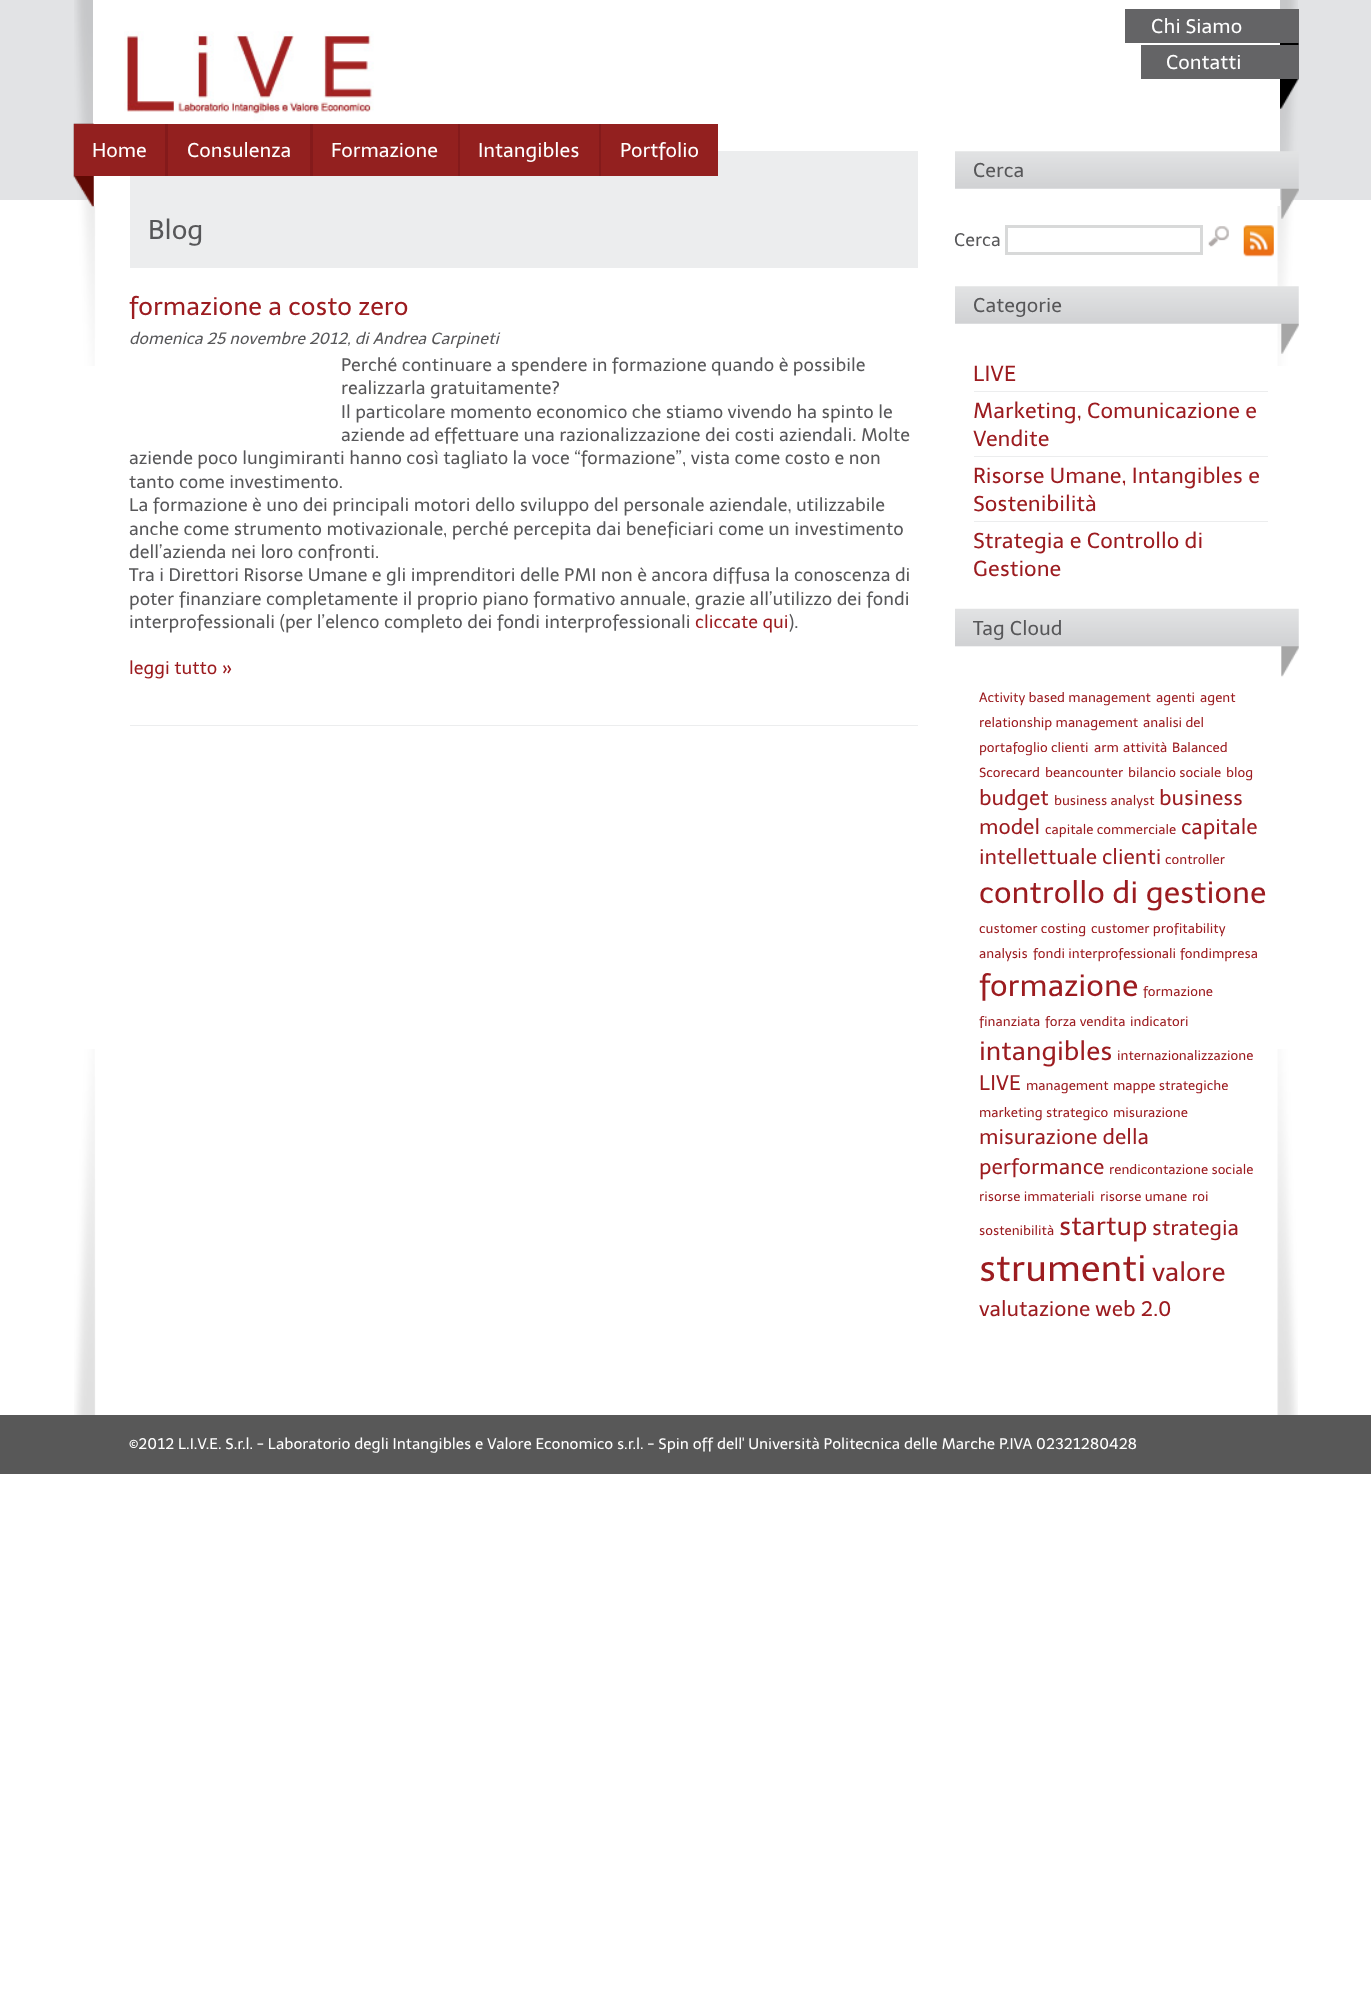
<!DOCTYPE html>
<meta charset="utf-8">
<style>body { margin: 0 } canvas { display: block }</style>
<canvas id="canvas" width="1371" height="1999"></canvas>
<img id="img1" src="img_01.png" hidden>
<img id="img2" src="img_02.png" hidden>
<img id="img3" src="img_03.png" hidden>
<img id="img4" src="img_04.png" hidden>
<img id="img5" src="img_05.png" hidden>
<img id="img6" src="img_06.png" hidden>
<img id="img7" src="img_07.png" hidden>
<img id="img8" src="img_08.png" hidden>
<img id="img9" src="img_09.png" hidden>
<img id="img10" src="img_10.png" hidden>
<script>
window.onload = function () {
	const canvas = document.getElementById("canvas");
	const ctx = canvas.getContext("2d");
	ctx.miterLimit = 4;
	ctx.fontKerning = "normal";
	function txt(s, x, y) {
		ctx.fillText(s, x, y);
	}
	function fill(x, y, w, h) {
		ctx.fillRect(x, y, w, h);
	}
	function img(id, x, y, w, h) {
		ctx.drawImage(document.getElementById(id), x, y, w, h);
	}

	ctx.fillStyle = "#FFFFFF";
	fill(0, 0, 1371, 1999);
	ctx.fillStyle = "#E2E3E5";
	fill(0, 0, 1371, 200);
	img("img1", 74, 0, 1224, 366);
	img("img2", 74, 1049, 1224, 366);
	ctx.fillStyle = "#FFFFFF";
	fill(93, 0, 1187, 206);
	img("img3", 124, 31, 250, 90);
	img("img4", 1280, 43, 19, 66);
	ctx.fillStyle = "#646466";
	fill(1125, 9, 174, 34);
	fill(1141, 45, 158, 34);
	img("img5", 73, 123, 21, 84);
	ctx.fillStyle = "#ECEDEE";
	fill(130, 151, 788, 117);
	ctx.fillStyle = "#93201F";
	fill(74, 124, 91, 52);
	ctx.fillStyle = "#841A1B";
	fill(165, 124, 3, 52);
	ctx.fillStyle = "#93201F";
	fill(168, 124, 142, 52);
	ctx.fillStyle = "#841A1B";
	fill(310, 124, 3, 52);
	ctx.fillStyle = "#93201F";
	fill(313, 124, 145, 52);
	ctx.fillStyle = "#841A1B";
	fill(458, 124, 2, 52);
	ctx.fillStyle = "#93201F";
	fill(460, 124, 139, 52);
	ctx.fillStyle = "#841A1B";
	fill(599, 124, 2, 52);
	ctx.fillStyle = "#93201F";
	fill(601, 124, 117, 52);
	ctx.fillStyle = "#ECEDEE";
	fill(130, 725, 788, 1);
	img("img6", 955, 151, 344, 68);
	ctx.strokeStyle = "#D8D9D9";
	ctx.lineWidth = 3;
	ctx.strokeRect(1006.5, 226.5, 195, 27);
	img("img7", 1208, 226, 21, 21);
	img("img8", 1243, 225, 31, 32);
	img("img9", 955, 286, 344, 68);
	fill(974, 391, 294, 1);
	fill(974, 456, 294, 1);
	fill(974, 521, 294, 1);
	img("img10", 955, 608, 344, 69);
	ctx.fillStyle = "#585858";
	fill(0, 1415, 1371, 59);
	ctx.font = "19.75px Telex";
	ctx.fillStyle = "#FFFFFF";
	txt("Chi Siamo", 1151, 33);
	txt("Contatti", 1166, 69);
	txt("Home", 92, 157);
	txt("Consulenza", 187, 157);
	txt("Formazione", 331, 157);
	txt("Intangibles", 478, 157);
	txt("Portfolio", 620, 157);
	ctx.font = "27px Telex";
	ctx.fillStyle = "#575759";
	txt("Blog", 148, 239);
	ctx.font = "25.25px Telex";
	ctx.fillStyle = "#9C1C20";
	txt("formazione a costo zero", 129, 315);
	ctx.font = "italic 16.2px Telex";
	ctx.fillStyle = "#575759";
	txt("domenica 25 novembre 2012, di Andrea Carpineti", 129, 344);
	ctx.font = "18px Telex";
	txt("Perché continuare a spendere in formazione quando è possibile", 341, 371);
	txt("realizzarla gratuitamente?", 341, 394);
	txt("Il particolare momento economico che stiamo vivendo ha spinto le", 341, 418);
	txt("aziende ad effettuare una razionalizzazione dei costi aziendali. Molte", 341, 441);
	txt("aziende poco lungimiranti hanno così tagliato la voce “formazione”, vista come costo e non", 129, 464);
	txt("tanto come investimento.", 129, 488);
	txt("La formazione è uno dei principali motori dello sviluppo del personale aziendale, utilizzabile", 129, 511);
	txt("anche come strumento motivazionale, perché percepita dai beneficiari come un investimento", 129, 535);
	txt("dell’azienda nei loro confronti.", 129, 558);
	txt("Tra i Direttori Risorse Umane e gli imprenditori delle PMI non è ancora diffusa la conoscenza di", 129, 581);
	txt("poter finanziare completamente il proprio piano formativo annuale, grazie all’utilizzo dei fondi", 129, 605);
	txt("interprofessionali (per l’elenco completo dei fondi interprofessionali", 129, 628);
	ctx.fillStyle = "#9C1C20";
	txt("cliccate qui", 695, 628);
	ctx.fillStyle = "#575759";
	txt(").", 789, 628);
	ctx.fillStyle = "#9C1C20";
	txt("leggi tutto »", 129, 674);
	ctx.font = "19.75px Telex";
	ctx.fillStyle = "#575759";
	txt("Cerca", 973, 177);
	ctx.font = "18px Telex";
	txt("Cerca", 954, 246);
	ctx.font = "19.75px Telex";
	txt("Categorie", 973, 312);
	ctx.font = "21.6px Telex";
	ctx.fillStyle = "#9C1C20";
	txt("LIVE", 973, 381);
	txt("Marketing, Comunicazione e", 973, 418);
	txt("Vendite", 973, 446);
	txt("Risorse Umane, Intangibles e", 973, 483);
	txt("Sostenibilità", 973, 511);
	txt("Strategia e Controllo di", 973, 548);
	txt("Gestione", 973, 576);
	ctx.font = "19.75px Telex";
	ctx.fillStyle = "#575759";
	txt("Tag Cloud", 973, 635);
	ctx.font = "13.3px Telex";
	ctx.fillStyle = "#9C1C20";
	txt("Activity based management", 979, 702);
	txt("agenti", 1156, 702);
	txt("agent", 1200, 702);
	txt("relationship management", 979, 727);
	txt("analisi del", 1143, 727);
	txt("portafoglio clienti", 979, 752);
	txt("arm", 1094, 752);
	txt("attività", 1123, 752);
	txt("Balanced", 1172, 752);
	txt("Scorecard", 979, 777);
	txt("beancounter", 1045, 777);
	txt("bilancio sociale", 1128, 777);
	txt("blog", 1226, 777);
	ctx.font = "21px Telex";
	txt("budget", 979, 805);
	ctx.font = "13.3px Telex";
	txt("business analyst", 1054, 805);
	ctx.font = "21px Telex";
	txt("business", 1159, 805);
	txt("model", 979, 834);
	ctx.font = "13.3px Telex";
	txt("capitale commerciale", 1045, 834);
	ctx.font = "21px Telex";
	txt("capitale", 1181, 834);
	txt("intellettuale", 979, 864);
	txt("clienti", 1102, 864);
	ctx.font = "13.3px Telex";
	txt("controller", 1165, 864);
	ctx.font = "30.25px Telex";
	txt("controllo di gestione", 979, 903);
	ctx.font = "13.3px Telex";
	txt("customer costing", 979, 933);
	txt("customer profitability", 1091, 933);
	txt("analysis", 979, 958);
	txt("fondi interprofessionali", 1033, 958);
	txt("fondimpresa", 1180, 958);
	ctx.font = "30.25px Telex";
	txt("formazione", 979, 996);
	ctx.font = "13.3px Telex";
	txt("formazione", 1143, 996);
	txt("finanziata", 979, 1026);
	txt("forza vendita", 1045, 1026);
	txt("indicatori", 1130, 1026);
	ctx.font = "26px Telex";
	txt("intangibles", 979, 1060);
	ctx.font = "13.3px Telex";
	txt("internazionalizzazione", 1117, 1060);
	ctx.font = "21px Telex";
	txt("LIVE", 979, 1090);
	ctx.font = "13.3px Telex";
	txt("management", 1026, 1090);
	txt("mappe strategiche", 1113, 1090);
	txt("marketing strategico", 979, 1117);
	txt("misurazione", 1113, 1117);
	ctx.font = "21px Telex";
	txt("misurazione della", 979, 1144);
	txt("performance", 979, 1174);
	ctx.font = "13.3px Telex";
	txt("rendicontazione sociale", 1109, 1174);
	txt("risorse immateriali", 979, 1201);
	txt("risorse umane", 1100, 1201);
	txt("roi", 1192, 1201);
	txt("sostenibilità", 979, 1235);
	ctx.font = "26px Telex";
	txt("startup", 1059, 1235);
	ctx.font = "21px Telex";
	txt("strategia", 1152, 1235);
	ctx.font = "36.5px Telex";
	txt("strumenti", 979, 1281);
	ctx.font = "26px Telex";
	txt("valore", 1152, 1281);
	ctx.font = "21px Telex";
	txt("valutazione", 979, 1316);
	txt("web 2.0", 1095, 1316);
	ctx.font = "15.3px Telex";
	ctx.fillStyle = "#FFFFFF";
	txt("©2012 L.I.V.E. S.r.l. - Laboratorio degli Intangibles e Valore Economico s.r.l. - Spin off dell' Università Politecnica delle Marche P.IVA 02321280428", 129, 1449);
};
</script>
